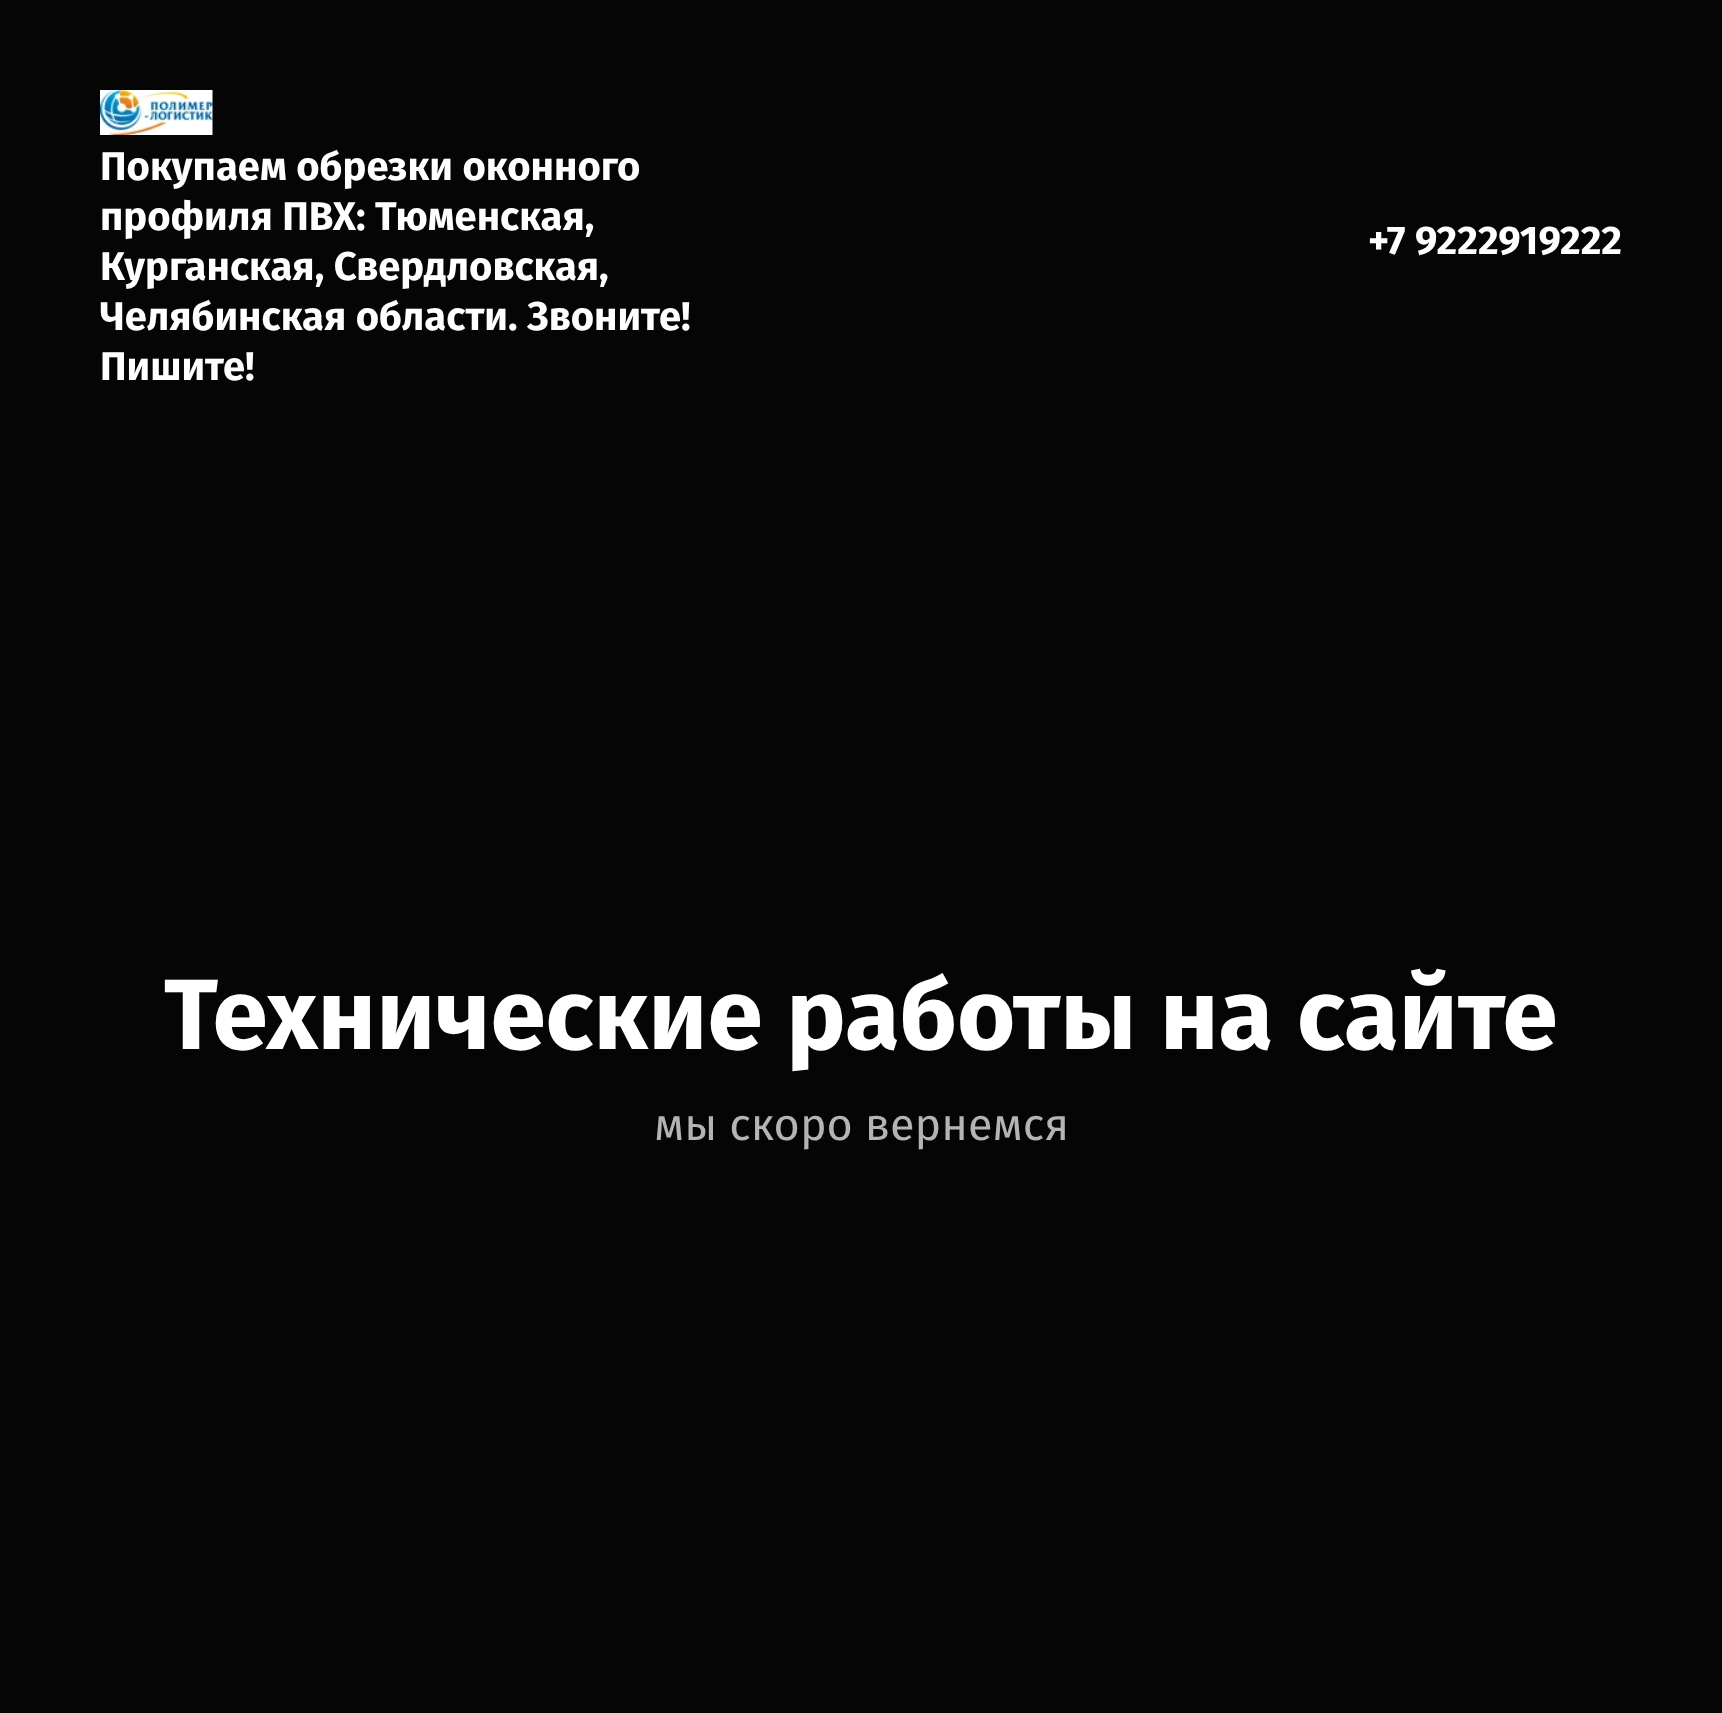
<!DOCTYPE html>
<meta charset="utf-8">
<style>body { margin: 0 } canvas { display: block }</style>
<canvas id="canvas" width="1722" height="1713"></canvas>
<img id="img1" src="img_01.png" hidden>
<script>
window.onload = function () {
	const canvas = document.getElementById("canvas");
	const ctx = canvas.getContext("2d");
	ctx.miterLimit = 4;
	ctx.fontKerning = "normal";
	function txt(s, x, y) {
		ctx.fillText(s, x, y);
	}
	function fill(x, y, w, h) {
		ctx.fillRect(x, y, w, h);
	}
	function img(id, x, y, w, h) {
		ctx.drawImage(document.getElementById(id), x, y, w, h);
	}

	ctx.fillStyle = "#050505";
	fill(0, 0, 1722, 1713);
	img("img1", 100, 90, 113, 45);
	ctx.font = "bold 40px Fira Sans";
	ctx.fillStyle = "#FFFFFF";
	txt("Покупаем обрезки оконного", 100, 180);
	txt("профиля ПВХ: Тюменская,", 100, 230);
	txt("Курганская, Свердловская,", 100, 280);
	txt("Челябинская области. Звоните!", 100, 330);
	txt("Пишите!", 100, 380);
	txt("+7 9222919222", 1368, 254);
	ctx.font = "bold 100px Fira Sans";
	txt("Технические работы на сайте", 164, 1049);
	ctx.font = "45px Fira Sans";
	ctx.fillStyle = "#B4B4B4";
	txt("мы скоро вернемся", 654, 1140);
};
</script>
